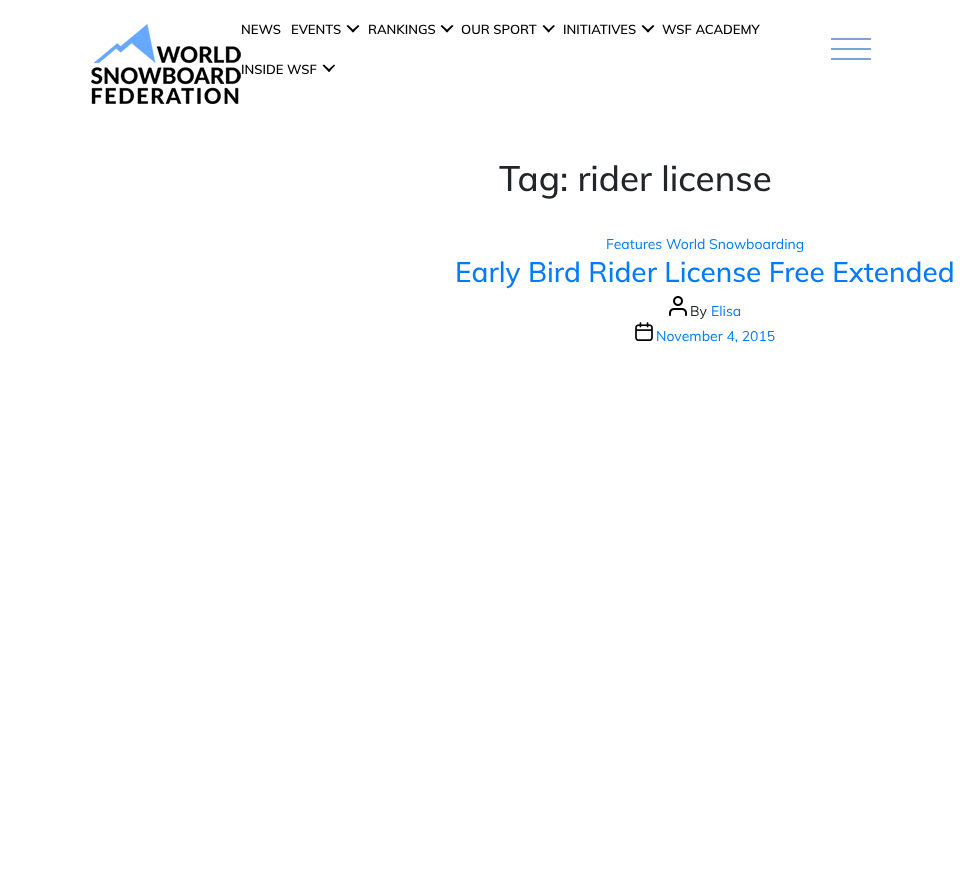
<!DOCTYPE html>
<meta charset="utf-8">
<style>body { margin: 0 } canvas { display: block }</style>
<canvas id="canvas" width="963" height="885"></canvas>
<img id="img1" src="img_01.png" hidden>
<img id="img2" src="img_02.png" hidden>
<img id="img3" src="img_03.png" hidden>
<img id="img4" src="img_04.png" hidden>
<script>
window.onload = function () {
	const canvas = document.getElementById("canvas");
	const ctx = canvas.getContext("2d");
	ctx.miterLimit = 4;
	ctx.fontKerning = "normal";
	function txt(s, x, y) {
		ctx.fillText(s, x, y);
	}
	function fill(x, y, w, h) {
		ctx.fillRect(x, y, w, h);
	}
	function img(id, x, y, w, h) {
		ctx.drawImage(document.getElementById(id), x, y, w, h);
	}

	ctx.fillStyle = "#FFFFFF";
	fill(0, 0, 963, 885);
	img("img1", 91, 24, 150, 80);
	ctx.fillStyle = "#000000";
	ctx.beginPath();
	ctx.moveTo(358, 25);
	ctx.lineTo(359.5, 26);
	ctx.lineTo(353, 32.5);
	ctx.lineTo(351.5, 31);
	ctx.closePath();
	ctx.fill();
	ctx.beginPath();
	ctx.moveTo(348, 25);
	ctx.lineTo(354.5, 31);
	ctx.lineTo(353, 32.5);
	ctx.lineTo(346.5, 26);
	ctx.closePath();
	ctx.fill();
	ctx.beginPath();
	ctx.moveTo(452, 25);
	ctx.lineTo(453.5, 26);
	ctx.lineTo(447, 32.5);
	ctx.lineTo(445.5, 31);
	ctx.closePath();
	ctx.fill();
	ctx.beginPath();
	ctx.moveTo(442, 25);
	ctx.lineTo(448.5, 31);
	ctx.lineTo(447, 32.5);
	ctx.lineTo(440.5, 26);
	ctx.closePath();
	ctx.fill();
	ctx.beginPath();
	ctx.moveTo(553.5, 25);
	ctx.lineTo(555, 26);
	ctx.lineTo(548.5, 32.5);
	ctx.lineTo(547.5, 31);
	ctx.closePath();
	ctx.fill();
	ctx.beginPath();
	ctx.moveTo(544, 25);
	ctx.lineTo(550, 31);
	ctx.lineTo(548.5, 32.5);
	ctx.lineTo(542.5, 26);
	ctx.closePath();
	ctx.fill();
	ctx.beginPath();
	ctx.moveTo(653, 25);
	ctx.lineTo(654.5, 26);
	ctx.lineTo(648, 32.5);
	ctx.lineTo(646.5, 31);
	ctx.closePath();
	ctx.fill();
	ctx.beginPath();
	ctx.moveTo(643, 25);
	ctx.lineTo(649.5, 31);
	ctx.lineTo(648, 32.5);
	ctx.lineTo(641.5, 26);
	ctx.closePath();
	ctx.fill();
	ctx.beginPath();
	ctx.moveTo(334, 64.5);
	ctx.lineTo(335, 65.5);
	ctx.lineTo(329, 72);
	ctx.lineTo(327.5, 70.5);
	ctx.closePath();
	ctx.fill();
	ctx.beginPath();
	ctx.moveTo(324, 64.5);
	ctx.lineTo(330.5, 70.5);
	ctx.lineTo(329, 72);
	ctx.lineTo(322.5, 65.5);
	ctx.closePath();
	ctx.fill();
	img("img2", 831, 38, 40, 22);
	img("img3", 669, 296, 18, 20);
	img("img4", 635, 322, 18, 19);
	ctx.font = "600 13px Muli";
	txt("NEWS", 241, 34);
	txt("EVENTS", 291, 34);
	txt("RANKINGS", 368, 34);
	txt("OUR SPORT", 461, 34);
	txt("INITIATIVES", 563, 34);
	txt("WSF ACADEMY", 662, 34);
	txt("INSIDE WSF", 241, 74);
	ctx.font = "500 35px Muli";
	ctx.fillStyle = "#212529";
	txt("Tag: rider license", 499, 191);
	ctx.font = "14px Muli";
	ctx.fillStyle = "#007BFF";
	txt("Features World Snowboarding", 606, 249);
	ctx.font = "500 28px Muli";
	txt("Early Bird Rider License Free Extended", 455, 282);
	ctx.font = "14px Muli";
	ctx.fillStyle = "#212529";
	txt("By", 690, 316);
	ctx.fillStyle = "#007BFF";
	txt("Elisa", 711, 316);
	txt("November 4, 2015", 656, 341);
};
</script>
